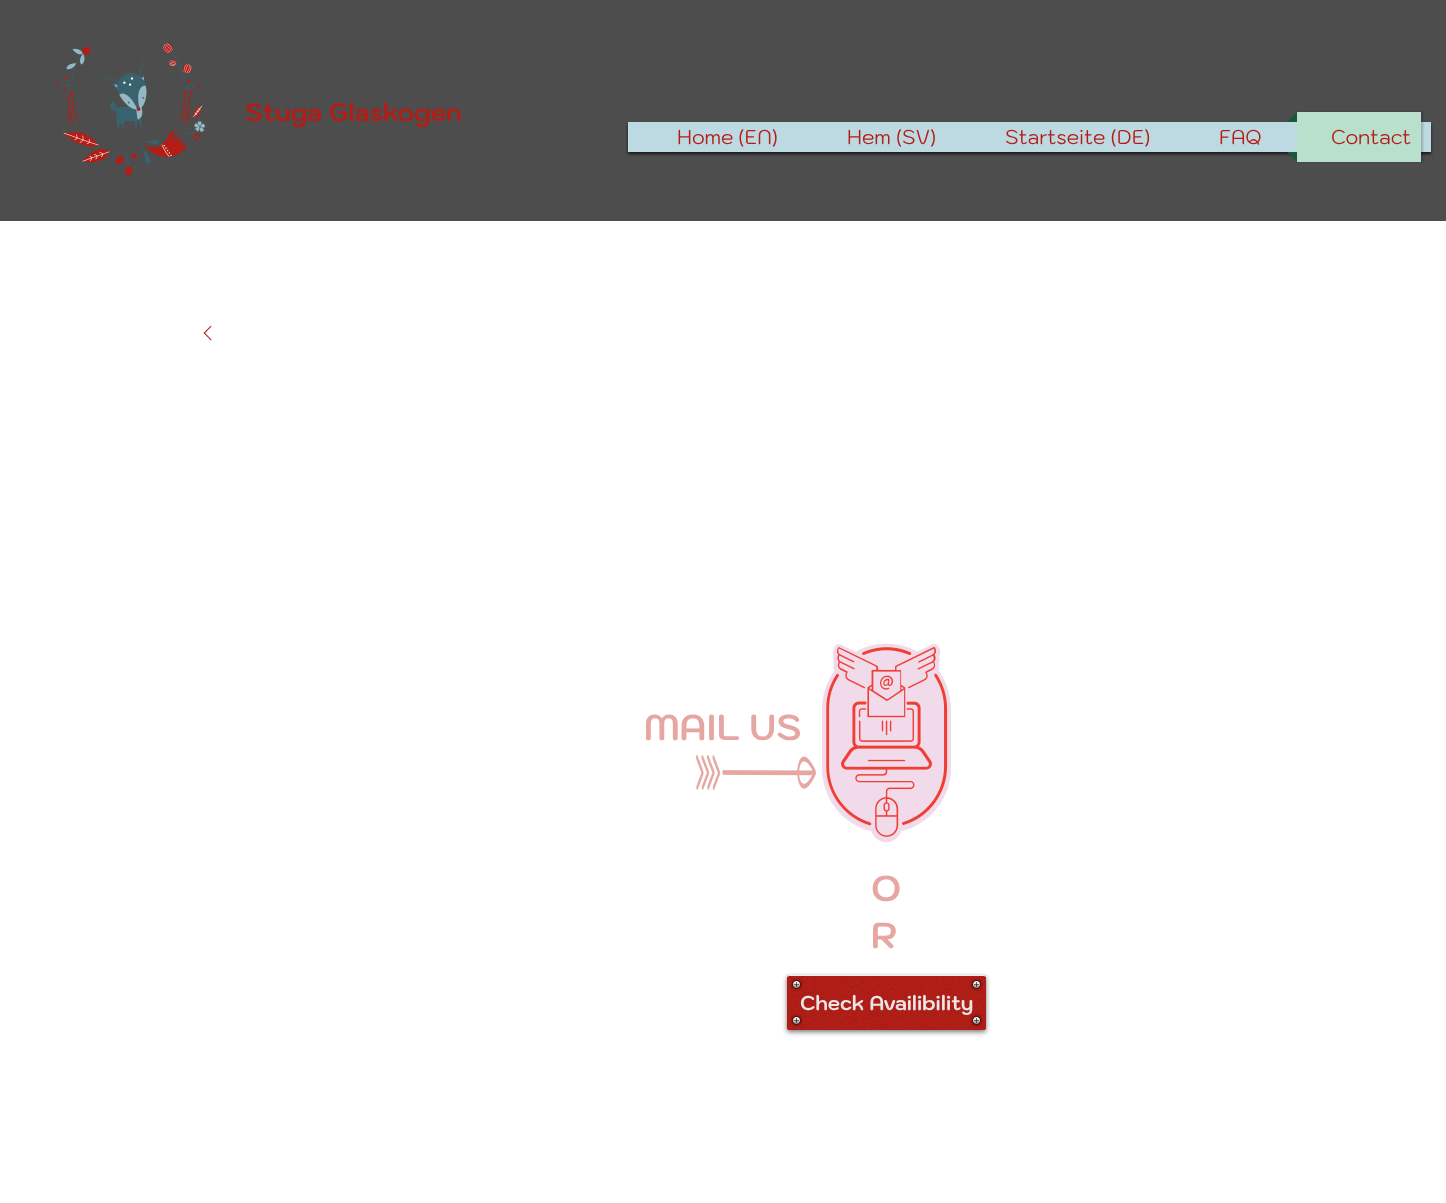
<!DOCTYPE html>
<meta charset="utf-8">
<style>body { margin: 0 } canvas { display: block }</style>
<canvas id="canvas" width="1446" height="1203"></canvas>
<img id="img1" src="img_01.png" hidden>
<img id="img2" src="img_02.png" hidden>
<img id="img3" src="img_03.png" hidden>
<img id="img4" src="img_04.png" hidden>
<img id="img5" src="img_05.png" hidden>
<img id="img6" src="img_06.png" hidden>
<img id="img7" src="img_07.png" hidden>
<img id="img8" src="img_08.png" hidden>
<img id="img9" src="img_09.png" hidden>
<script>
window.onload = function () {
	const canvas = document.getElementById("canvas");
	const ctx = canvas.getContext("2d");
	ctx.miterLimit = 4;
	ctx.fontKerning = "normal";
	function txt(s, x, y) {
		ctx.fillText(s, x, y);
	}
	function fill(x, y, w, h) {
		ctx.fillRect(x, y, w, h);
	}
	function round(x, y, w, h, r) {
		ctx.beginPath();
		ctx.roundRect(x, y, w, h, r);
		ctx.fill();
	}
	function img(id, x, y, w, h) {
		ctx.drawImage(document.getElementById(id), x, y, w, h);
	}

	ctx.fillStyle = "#FFFFFF";
	fill(0, 0, 1446, 1203);
	ctx.fillStyle = "#4D4D4D";
	fill(0, 0, 1446, 221);
	img("img1", 56, 41, 149, 137);
	ctx.fillStyle = "rgba(0, 0, 0, 0.7)";
	ctx.filter = "blur(1.5px)";
	ctx.beginPath();
	ctx.rect(628, 124, 803, 30);
	ctx.fill();
	ctx.filter = "none";
	ctx.fillStyle = "#BDD9E1";
	fill(628, 122, 803, 30);
	ctx.fillStyle = "rgba(0, 0, 0, 0.2)";
	ctx.filter = "blur(1px)";
	ctx.beginPath();
	ctx.rect(1299, 112, 124, 50);
	ctx.fill();
	ctx.filter = "none";
	ctx.fillStyle = "#1B5739";
	ctx.beginPath();
	ctx.moveTo(1297, 122);
	ctx.lineTo(1287, 122);
	ctx.lineTo(1297, 112);
	ctx.closePath();
	ctx.moveTo(1287, 152);
	ctx.lineTo(1297, 152);
	ctx.lineTo(1297, 162);
	ctx.closePath();
	ctx.fill();
	ctx.fillStyle = "#B9E0CD";
	fill(1297, 112, 124, 50);
	img("img2", 203, 325, 9, 16);
	img("img3", 822, 643, 129, 200);
	img("img4", 696, 755, 120, 35);
	ctx.fillStyle = "rgba(0, 0, 0, 0.53)";
	ctx.filter = "blur(2.5px)";
	ctx.beginPath();
	ctx.roundRect(787, 977, 199, 55, 2);
	ctx.fill();
	ctx.filter = "none";
	ctx.fillStyle = "#B31D15";
	round(787, 975, 199, 55, 2);
	img("img5", 787, 975, 199, 55);
	ctx.fillStyle = "rgba(255, 255, 255, 0.92)";
	ctx.beginPath();
	ctx.moveTo(789, 976);
	ctx.lineTo(984, 976);
	ctx.lineTo(986, 977);
	ctx.lineTo(986, 978);
	ctx.bezierCurveTo(986, 977, 986, 975, 984, 975);
	ctx.lineTo(789, 975);
	ctx.bezierCurveTo(787, 975, 787, 977, 787, 978);
	ctx.bezierCurveTo(787, 977, 788, 976, 789, 976);
	ctx.closePath();
	ctx.fill();
	img("img6", 790, 978, 13, 13);
	img("img7", 970, 978, 13, 13);
	img("img8", 790, 1014, 13, 13);
	img("img9", 970, 1014, 13, 13);
	ctx.font = "bold 25px Kodchasan";
	ctx.fillStyle = "#B31D15";
	txt("Stuga Glaskogen", 245, 121);
	ctx.font = "20px Kodchasan";
	txt("Home (EN)", 677, 144);
	txt("Hem (SV)", 847, 144);
	txt("Startseite (DE)", 1005, 144);
	txt("FAQ", 1219, 144);
	txt("Contact", 1331, 144);
	ctx.font = "bold 36px Kodchasan";
	ctx.fillStyle = "#E6A6A2";
	txt("MAIL US", 644, 740);
	txt("O", 871, 901);
	txt("R", 871, 948);
	ctx.font = "bold 20px Kodchasan";
	ctx.fillStyle = "#E8E6E6";
	txt("Check Availibility", 800, 1010);
};
</script>
